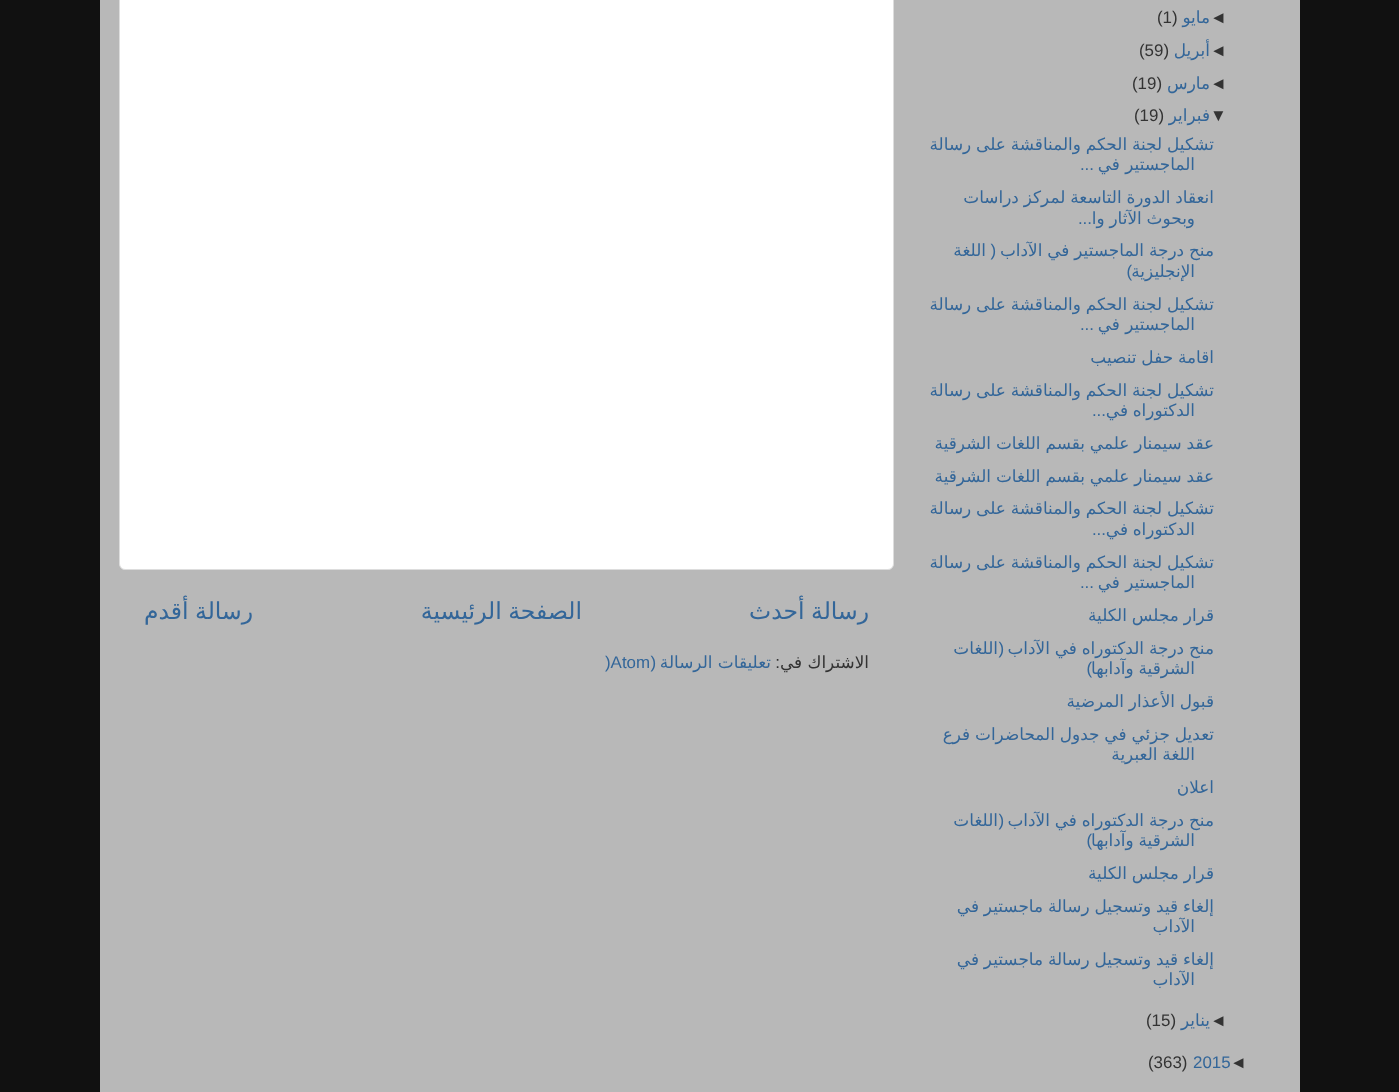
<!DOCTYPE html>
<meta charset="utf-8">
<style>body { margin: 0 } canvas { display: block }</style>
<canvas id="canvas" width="1399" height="1092"></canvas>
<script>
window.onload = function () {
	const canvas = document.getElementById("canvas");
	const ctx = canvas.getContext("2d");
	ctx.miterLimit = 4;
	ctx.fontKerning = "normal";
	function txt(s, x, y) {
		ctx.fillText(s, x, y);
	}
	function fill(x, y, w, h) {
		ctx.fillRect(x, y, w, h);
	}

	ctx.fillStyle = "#111111";
	fill(0, 0, 1399, 1092);
	ctx.fillStyle = "#B8B8B8";
	fill(100, 0, 1200, 1092);
	ctx.fillStyle = "#FFFFFF";
	ctx.beginPath();
	ctx.roundRect(119.5, -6.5, 774, 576, 5.5);
	ctx.fill();
	ctx.strokeStyle = "#DDDDDD";
	ctx.stroke();
	ctx.font = "16.9px Liberation Sans";
	ctx.fillStyle = "#333333";
	txt("◄", 1210, 23);
	ctx.direction = "rtl";
	ctx.font = "16.9px DejaVu Sans";
	ctx.fillStyle = "#336699";
	txt("مايو", 1210, 23);
	ctx.direction = "ltr";
	ctx.font = "16.9px Liberation Sans";
	ctx.fillStyle = "#333333";
	txt("(1)", 1157, 23);
	txt("◄", 1210, 56);
	ctx.direction = "rtl";
	ctx.font = "16.9px DejaVu Sans";
	ctx.fillStyle = "#336699";
	txt("أبريل", 1210, 56);
	ctx.direction = "ltr";
	ctx.font = "16.9px Liberation Sans";
	ctx.fillStyle = "#333333";
	txt("(59)", 1139, 56);
	txt("◄", 1210, 89);
	ctx.direction = "rtl";
	ctx.font = "16.9px DejaVu Sans";
	ctx.fillStyle = "#336699";
	txt("مارس", 1210, 89);
	ctx.direction = "ltr";
	ctx.font = "16.9px Liberation Sans";
	ctx.fillStyle = "#333333";
	txt("(19)", 1132, 89);
	txt("▼", 1210, 121);
	ctx.direction = "rtl";
	ctx.font = "16.9px DejaVu Sans";
	ctx.fillStyle = "#336699";
	txt("فبراير", 1210, 121);
	ctx.direction = "ltr";
	ctx.font = "16.9px Liberation Sans";
	ctx.fillStyle = "#333333";
	txt("(19)", 1134, 121);
	ctx.wordSpacing = "-0.5px";
	ctx.direction = "rtl";
	ctx.font = "16.9px DejaVu Sans";
	ctx.fillStyle = "#336699";
	txt("تشكيل لجنة الحكم والمناقشة على رسالة", 1214, 150);
	ctx.wordSpacing = "0px";
	txt("الماجستير في", 1195, 170);
	ctx.font = "16.9px Liberation Sans";
	txt("...", 1094, 170);
	ctx.wordSpacing = "-0.5px";
	ctx.font = "16.9px DejaVu Sans";
	txt("انعقاد الدورة التاسعة لمركز دراسات", 1214, 203);
	txt("وبحوث الآثار وا", 1195, 224);
	ctx.wordSpacing = "0px";
	ctx.font = "16.9px Liberation Sans";
	txt("...", 1092, 224);
	ctx.wordSpacing = "-0.5px";
	ctx.font = "16.9px DejaVu Sans";
	txt("منح درجة الماجستير في الآداب", 1214, 256);
	ctx.wordSpacing = "0px";
	ctx.font = "16.9px Liberation Sans";
	txt("(", 996, 256);
	ctx.font = "16.9px DejaVu Sans";
	txt("اللغة", 986, 256);
	txt("الإنجليزية", 1195, 277);
	ctx.font = "16.9px Liberation Sans";
	txt(")", 1132, 277);
	ctx.wordSpacing = "-0.5px";
	ctx.font = "16.9px DejaVu Sans";
	txt("تشكيل لجنة الحكم والمناقشة على رسالة", 1214, 310);
	ctx.wordSpacing = "0px";
	txt("الماجستير في", 1195, 330);
	ctx.font = "16.9px Liberation Sans";
	txt("...", 1094, 330);
	ctx.wordSpacing = "-0.5px";
	ctx.font = "16.9px DejaVu Sans";
	txt("اقامة حفل تنصيب", 1214, 363);
	txt("تشكيل لجنة الحكم والمناقشة على رسالة", 1214, 396);
	ctx.wordSpacing = "0px";
	txt("الدكتوراه", 1195, 416);
	txt("في", 1128, 416);
	ctx.font = "16.9px Liberation Sans";
	txt("...", 1106, 416);
	ctx.wordSpacing = "-0.5px";
	ctx.font = "16.9px DejaVu Sans";
	txt("عقد سيمنار علمي بقسم اللغات الشرقية", 1214, 449);
	txt("عقد سيمنار علمي بقسم اللغات الشرقية", 1214, 482);
	txt("تشكيل لجنة الحكم والمناقشة على رسالة", 1214, 514);
	ctx.wordSpacing = "0px";
	txt("الدكتوراه", 1195, 535);
	txt("في", 1128, 535);
	ctx.font = "16.9px Liberation Sans";
	txt("...", 1106, 535);
	ctx.wordSpacing = "-0.5px";
	ctx.font = "16.9px DejaVu Sans";
	txt("تشكيل لجنة الحكم والمناقشة على رسالة", 1214, 568);
	ctx.wordSpacing = "0px";
	txt("الماجستير في", 1195, 588);
	ctx.font = "16.9px Liberation Sans";
	txt("...", 1094, 588);
	ctx.wordSpacing = "-0.5px";
	ctx.font = "16.9px DejaVu Sans";
	txt("قرار مجلس الكلية", 1214, 621);
	txt("منح درجة الدكتوراه في الآداب", 1214, 654);
	ctx.wordSpacing = "0px";
	ctx.font = "16.9px Liberation Sans";
	txt("(", 1004, 654);
	ctx.font = "16.9px DejaVu Sans";
	txt("اللغات", 998, 654);
	ctx.wordSpacing = "-0.5px";
	txt("الشرقية وآدابها", 1195, 674);
	ctx.wordSpacing = "0px";
	ctx.font = "16.9px Liberation Sans";
	txt(")", 1092, 674);
	ctx.wordSpacing = "-0.5px";
	ctx.font = "16.9px DejaVu Sans";
	txt("قبول الأعذار المرضية", 1214, 707);
	txt("تعديل جزئي في جدول المحاضرات فرع", 1214, 740);
	txt("اللغة العبرية", 1195, 760);
	ctx.wordSpacing = "0px";
	txt("اعلان", 1214, 793);
	ctx.wordSpacing = "-0.5px";
	txt("منح درجة الدكتوراه في الآداب", 1214, 826);
	ctx.wordSpacing = "0px";
	ctx.font = "16.9px Liberation Sans";
	txt("(", 1004, 826);
	ctx.font = "16.9px DejaVu Sans";
	txt("اللغات", 998, 826);
	ctx.wordSpacing = "-0.5px";
	txt("الشرقية وآدابها", 1195, 846);
	ctx.wordSpacing = "0px";
	ctx.font = "16.9px Liberation Sans";
	txt(")", 1092, 846);
	ctx.wordSpacing = "-0.5px";
	ctx.font = "16.9px DejaVu Sans";
	txt("قرار مجلس الكلية", 1214, 879);
	txt("إلغاء قيد وتسجيل رسالة ماجستير في", 1214, 912);
	ctx.wordSpacing = "0px";
	txt("الآداب", 1195, 932);
	ctx.wordSpacing = "-0.5px";
	txt("إلغاء قيد وتسجيل رسالة ماجستير في", 1214, 965);
	ctx.wordSpacing = "0px";
	txt("الآداب", 1195, 985);
	ctx.direction = "ltr";
	ctx.font = "16.9px Liberation Sans";
	ctx.fillStyle = "#333333";
	txt("◄", 1210, 1026);
	ctx.direction = "rtl";
	ctx.font = "16.9px DejaVu Sans";
	ctx.fillStyle = "#336699";
	txt("يناير", 1210, 1026);
	ctx.direction = "ltr";
	ctx.font = "16.9px Liberation Sans";
	ctx.fillStyle = "#333333";
	txt("(15)", 1146, 1026);
	txt("◄", 1230, 1068);
	ctx.fillStyle = "#336699";
	txt("2015", 1193, 1068);
	ctx.fillStyle = "#333333";
	txt("(363)", 1148, 1068);
	ctx.wordSpacing = "-1px";
	ctx.direction = "rtl";
	ctx.font = "23.5px DejaVu Sans";
	ctx.fillStyle = "#336699";
	txt("رسالة أحدث", 869, 619);
	txt("الصفحة الرئيسية", 582, 619);
	txt("رسالة أقدم", 253, 619);
	ctx.wordSpacing = "0px";
	ctx.font = "16.9px DejaVu Sans";
	ctx.fillStyle = "#333333";
	txt("الاشتراك في", 869, 668);
	ctx.font = "16.9px Liberation Sans";
	txt(":", 780, 668);
	ctx.font = "16.9px DejaVu Sans";
	ctx.fillStyle = "#336699";
	txt("تعليقات الرسالة", 771, 668);
	ctx.font = "16.9px Liberation Sans";
	txt("(", 656, 668);
	ctx.direction = "ltr";
	txt(")Atom", 605, 668);
};
</script>
